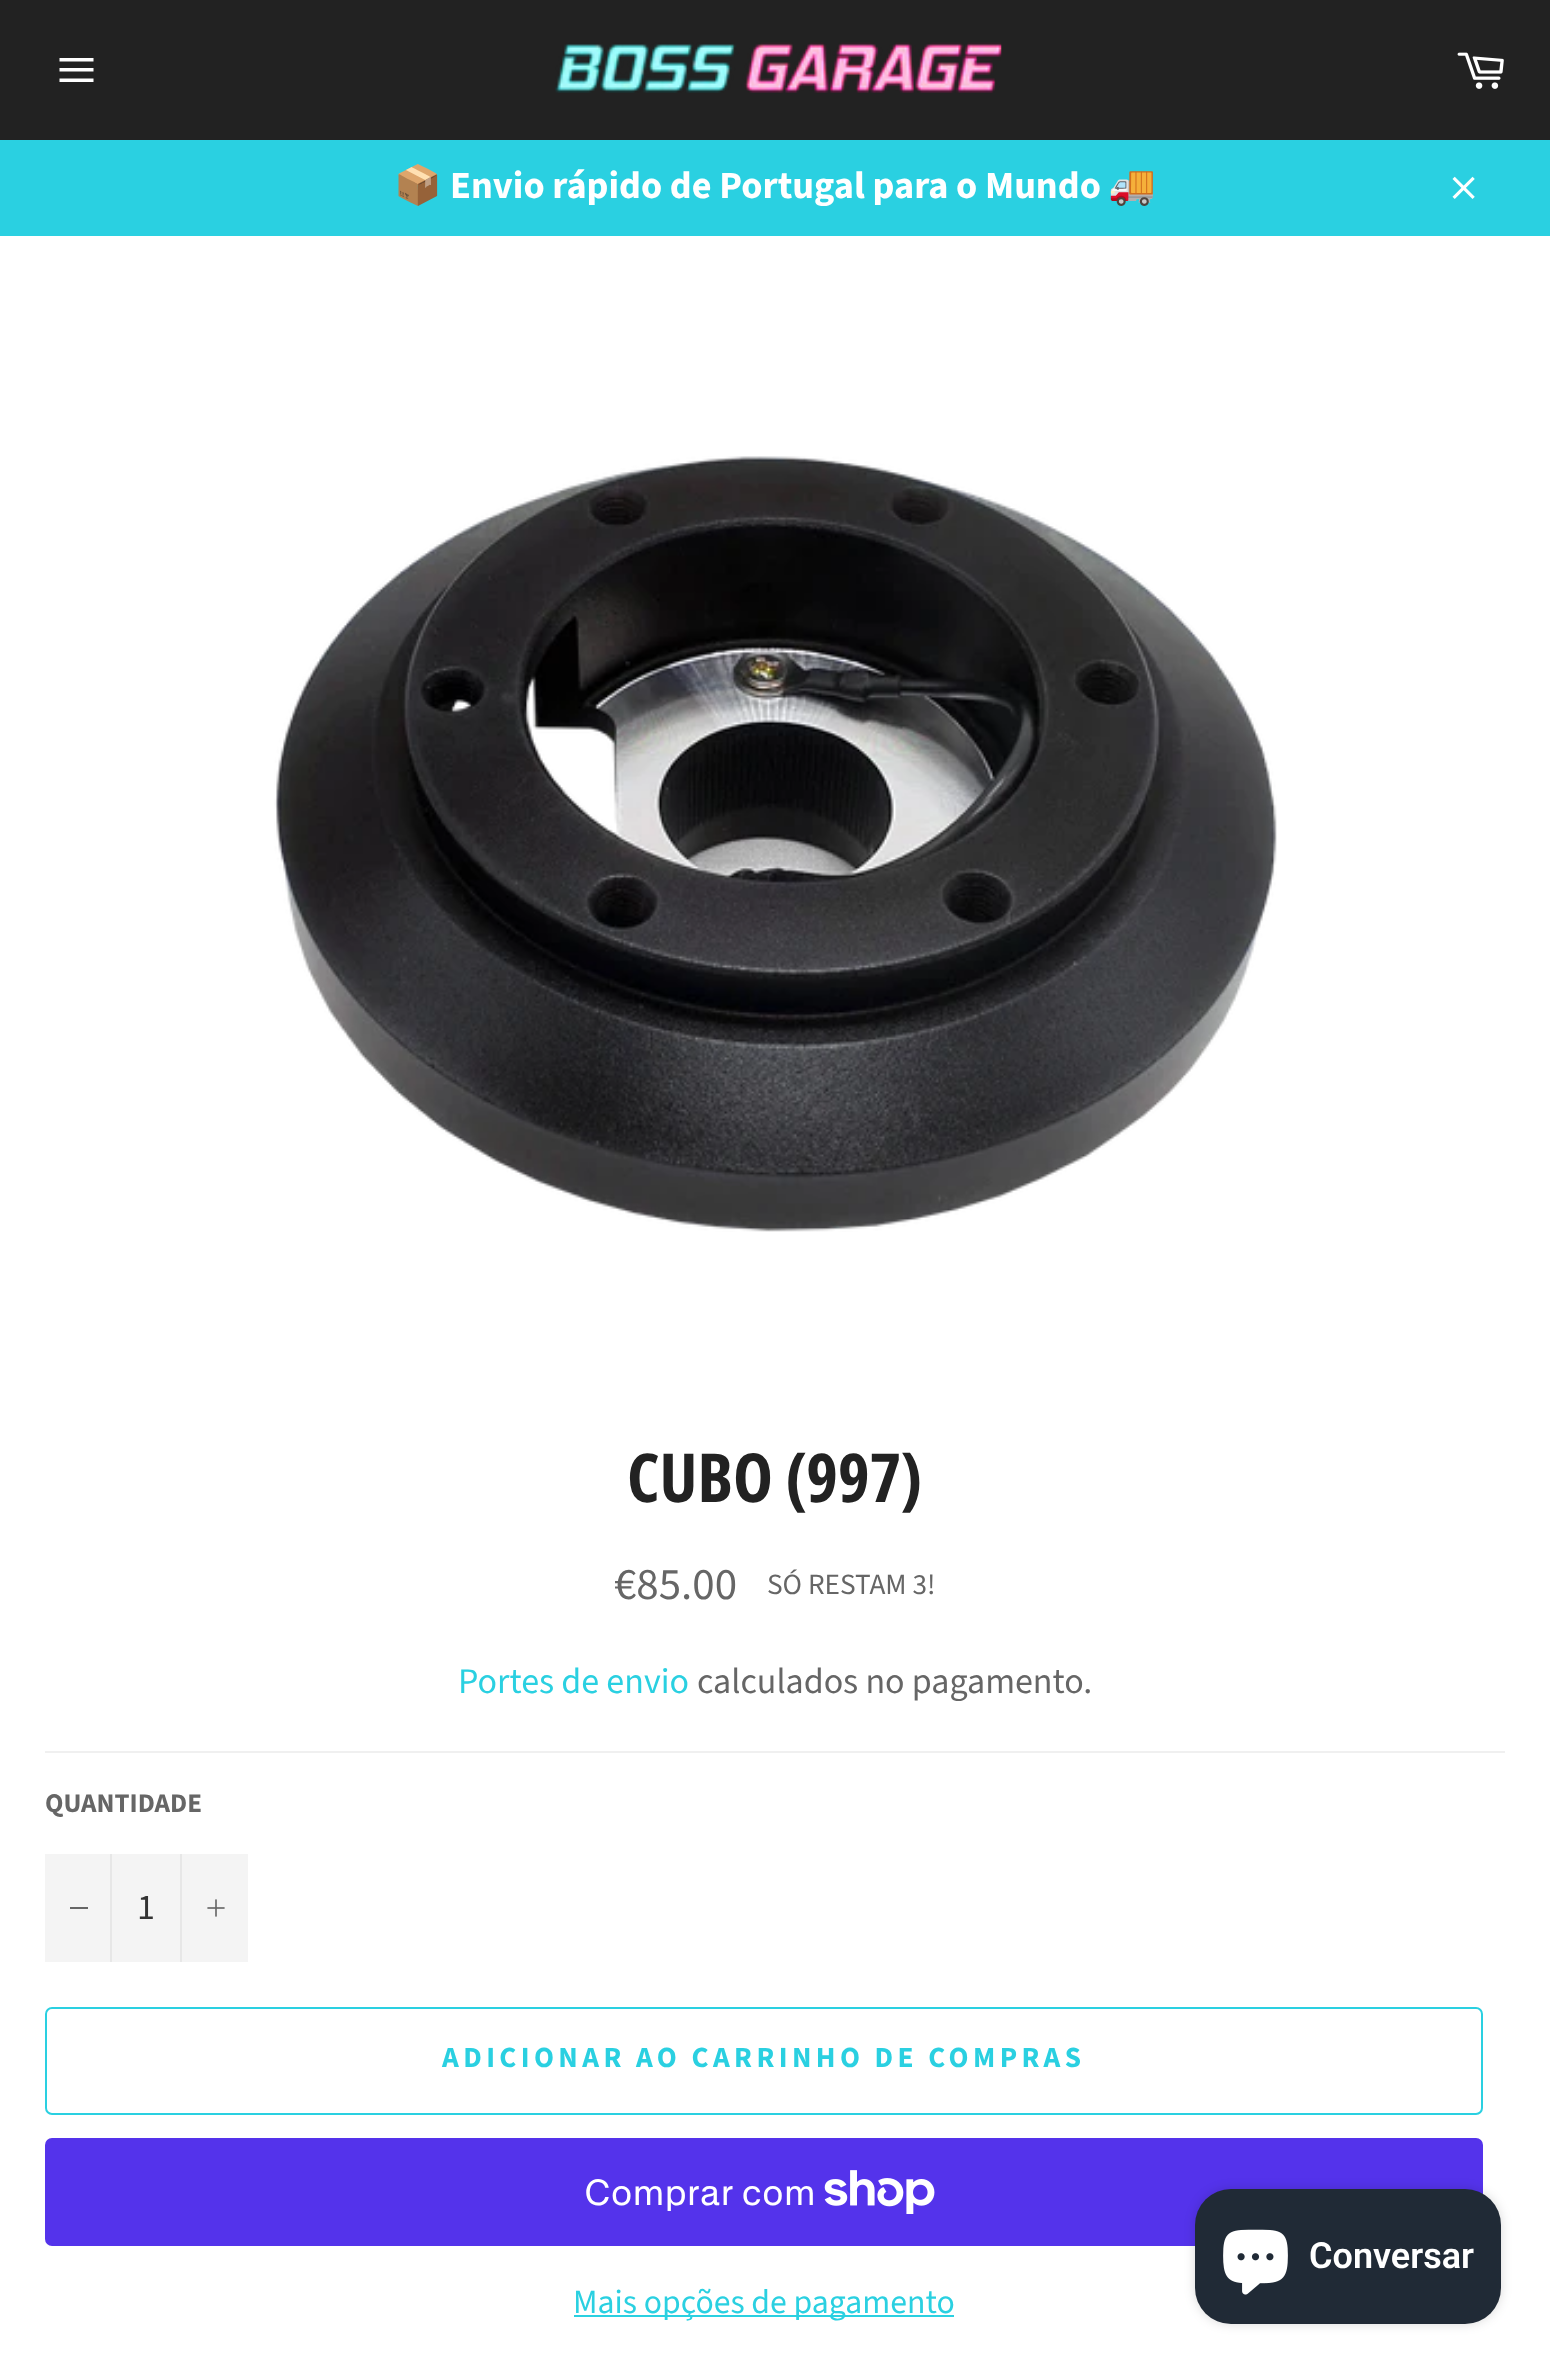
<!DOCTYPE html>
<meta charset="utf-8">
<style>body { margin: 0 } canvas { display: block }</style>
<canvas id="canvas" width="1550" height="2371"></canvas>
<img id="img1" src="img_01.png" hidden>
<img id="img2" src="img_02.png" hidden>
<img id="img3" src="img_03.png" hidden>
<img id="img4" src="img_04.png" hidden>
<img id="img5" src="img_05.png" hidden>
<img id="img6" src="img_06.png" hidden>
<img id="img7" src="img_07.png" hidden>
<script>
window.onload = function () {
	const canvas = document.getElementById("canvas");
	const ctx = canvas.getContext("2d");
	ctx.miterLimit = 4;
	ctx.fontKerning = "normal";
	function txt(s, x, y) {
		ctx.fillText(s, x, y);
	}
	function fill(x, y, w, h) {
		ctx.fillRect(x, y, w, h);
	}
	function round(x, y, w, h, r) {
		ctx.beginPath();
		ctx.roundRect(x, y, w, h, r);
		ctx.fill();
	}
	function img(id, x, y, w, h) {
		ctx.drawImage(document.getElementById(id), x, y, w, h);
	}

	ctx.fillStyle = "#222222";
	fill(0, 0, 1550, 2371);
	ctx.fillStyle = "#FFFFFF";
	ctx.beginPath();
	ctx.moveTo(59.5, 68);
	ctx.lineTo(93.5, 68);
	ctx.lineTo(93.5, 71.5);
	ctx.lineTo(59.5, 71.5);
	ctx.closePath();
	ctx.moveTo(59.5, 58);
	ctx.lineTo(93.5, 58);
	ctx.lineTo(93.5, 61.5);
	ctx.lineTo(59.5, 61.5);
	ctx.closePath();
	ctx.moveTo(59.5, 78.5);
	ctx.lineTo(93.5, 78.5);
	ctx.lineTo(93.5, 82);
	ctx.lineTo(59.5, 82);
	ctx.closePath();
	ctx.fill();
	img("img1", 555, 42, 447, 51);
	img("img2", 1457, 52, 47, 37);
	ctx.fillStyle = "#2AD0E1";
	fill(0, 140, 1550, 96);
	img("img3", 1452, 176, 23, 23);
	ctx.fillStyle = "#FFFFFF";
	fill(0, 236, 1550, 2135);
	img("img4", 274, 456, 1003, 776);
	ctx.fillStyle = "#F0F0F0";
	fill(45, 1751, 1460, 2);
	ctx.fillStyle = "#F4F4F4";
	fill(45, 1854, 203, 108);
	ctx.fillStyle = "#E7E7E7";
	fill(110, 1854, 2, 108);
	ctx.fillStyle = "#666666";
	fill(70, 1907, 18, 2);
	ctx.fillStyle = "#E7E7E7";
	fill(180, 1854, 2, 108);
	img("img5", 207, 1899, 18, 18);
	ctx.beginPath();
	ctx.roundRect(46, 2008, 1436, 106, 6);
	ctx.strokeStyle = "#2AD0E1";
	ctx.lineWidth = 2;
	ctx.stroke();
	ctx.fillStyle = "#5433EB";
	round(45, 2138, 1438, 108, 7);
	img("img6", 824, 2170, 111, 44);
	ctx.fillStyle = "#2AD0E1";
	fill(574, 2315, 380, 2);
	ctx.fillStyle = "rgba(0, 0, 0, 0.15)";
	ctx.filter = "blur(5.5px)";
	ctx.beginPath();
	ctx.roundRect(1195, 2189, 306, 135, 36);
	ctx.fill();
	ctx.filter = "none";
	ctx.fillStyle = "#202A36";
	round(1195, 2189, 306, 135, 36);
	img("img7", 1223, 2229, 65, 66);
	ctx.font = "bold 38.25px Noto Color Emoji";
	ctx.fillStyle = "#FFFFFF";
	txt("📦", 394, 198);
	ctx.font = "bold 38.25px Source Sans Pro";
	txt("Envio rápido de Portugal para o Mundo", 450, 198);
	ctx.font = "bold 38.25px Noto Color Emoji";
	txt("🚚", 1108, 198);
	ctx.font = "bold 67.5px Open Sans Condensed";
	ctx.fillStyle = "#222222";
	txt("CUBO (997)", 627, 1502);
	ctx.font = "45px Source Sans Pro";
	ctx.fillStyle = "#666666";
	txt("€85.00", 614, 1599);
	ctx.font = "29.25px Source Sans Pro";
	txt("SÓ RESTAM 3!", 767, 1594);
	ctx.font = "36px Source Sans Pro";
	ctx.fillStyle = "#2AD0E1";
	txt("Portes de envio", 458, 1693);
	ctx.fillStyle = "#666666";
	txt("calculados no pagamento.", 697, 1693);
	ctx.font = "bold 27px Source Sans Pro";
	txt("QUANTIDADE", 45, 1812);
	ctx.font = "36px Source Sans Pro";
	ctx.fillStyle = "#333333";
	txt("1", 137, 1919);
	ctx.letterSpacing = "4.4px";
	ctx.font = "bold 29.25px Source Sans Pro";
	ctx.fillStyle = "#2AD0E1";
	txt("ADICIONAR AO CARRINHO DE COMPRAS", 442, 2067);
	ctx.letterSpacing = "0px";
	ctx.font = "36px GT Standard";
	ctx.fillStyle = "#FFFFFF";
	txt("Comprar com", 584, 2205);
	ctx.font = "33.75px Source Sans Pro";
	ctx.fillStyle = "#2AD0E1";
	txt("Mais opções de pagamento", 573, 2313);
	ctx.font = "600 36px Roboto";
	ctx.fillStyle = "#FFFFFF";
	txt("Conversar", 1309, 2268);
};
</script>
